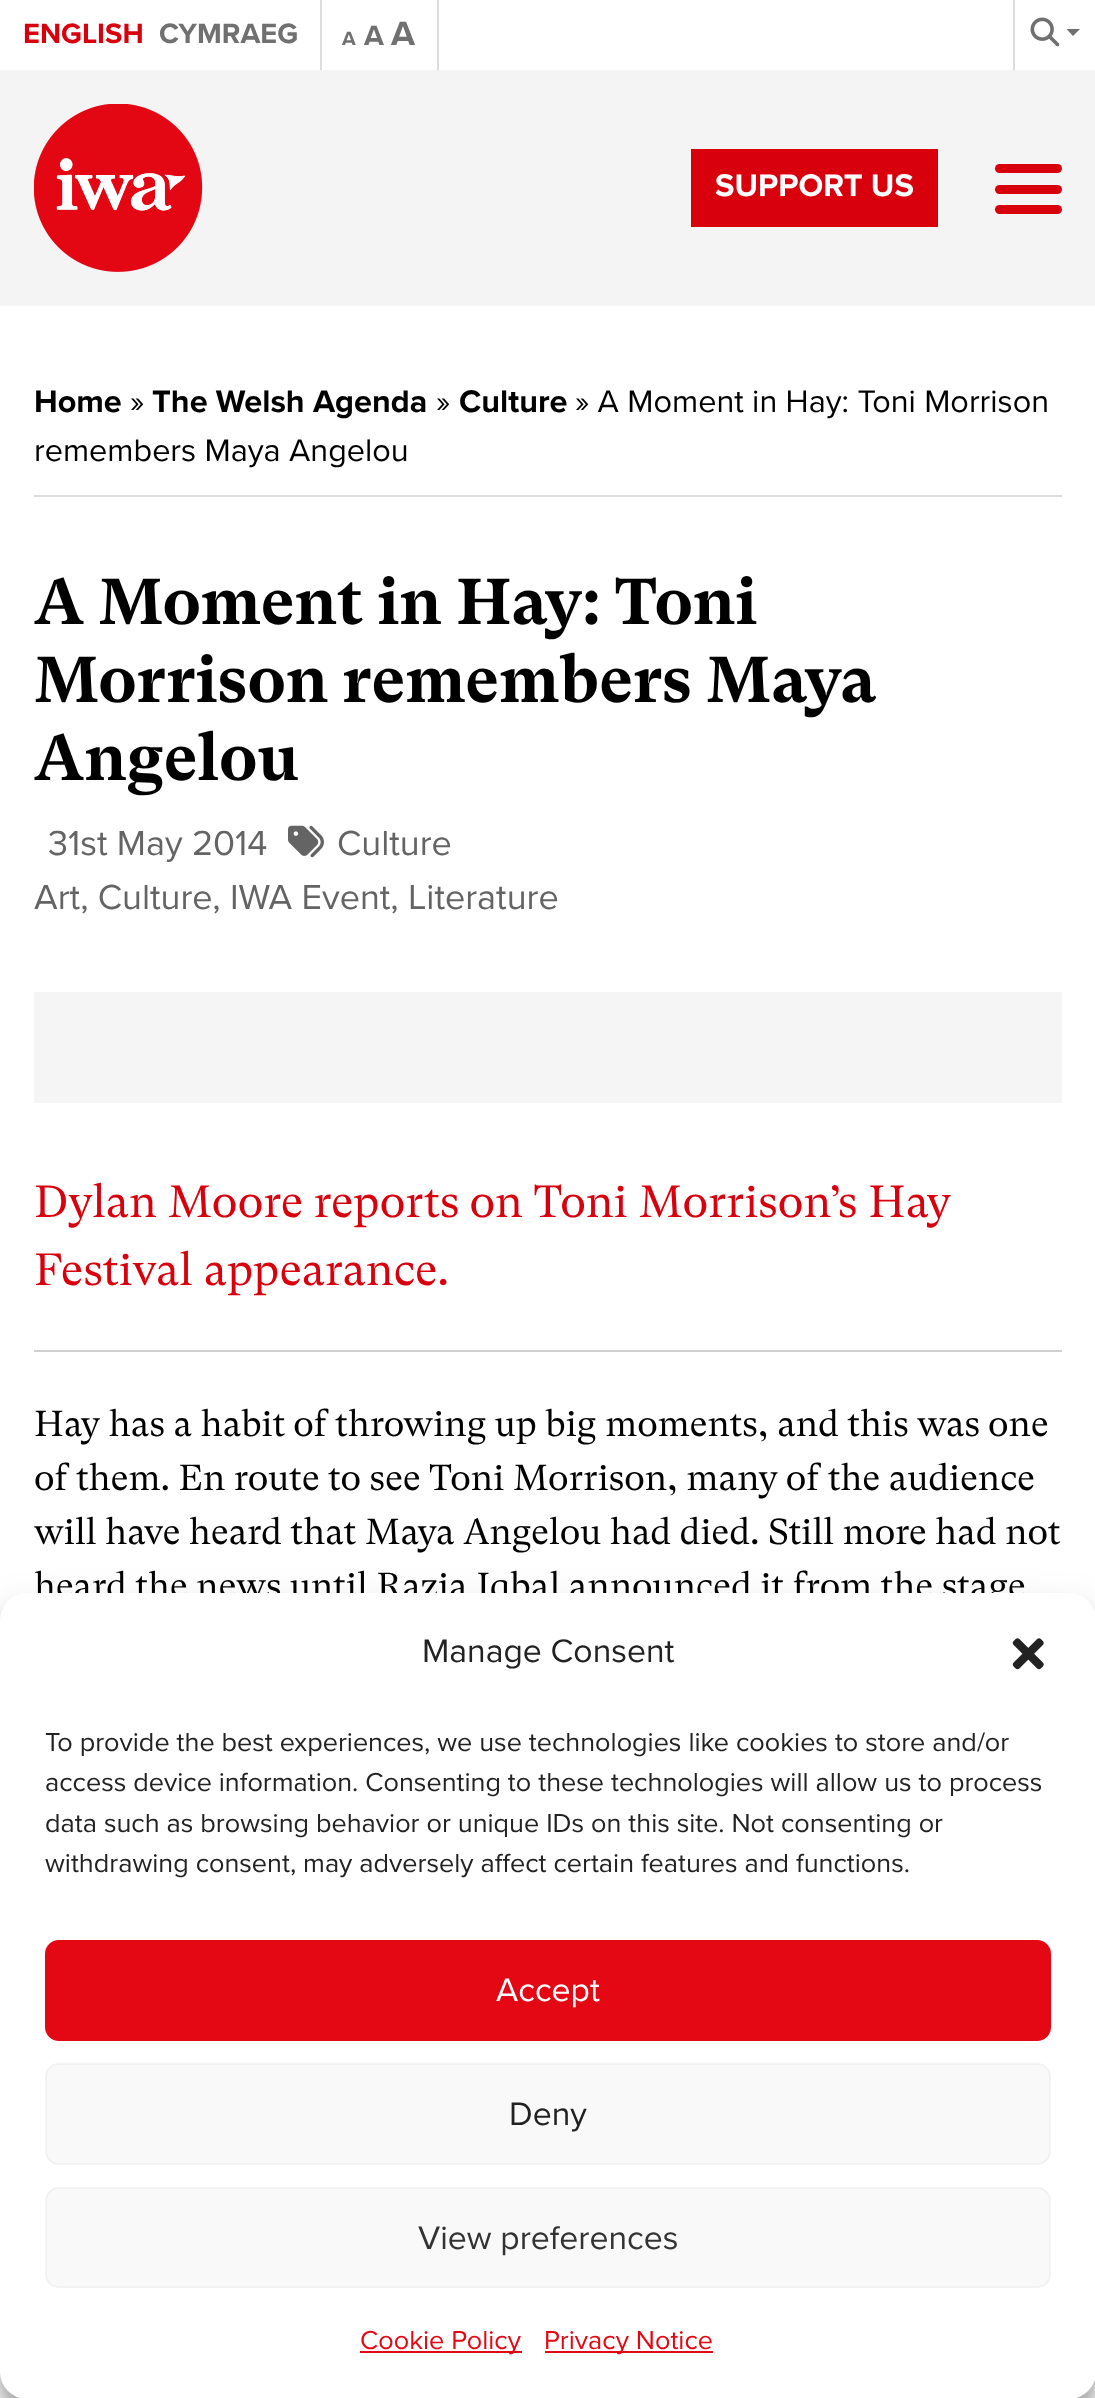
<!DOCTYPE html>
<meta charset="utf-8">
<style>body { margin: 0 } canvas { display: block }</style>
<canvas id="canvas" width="1095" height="2398"></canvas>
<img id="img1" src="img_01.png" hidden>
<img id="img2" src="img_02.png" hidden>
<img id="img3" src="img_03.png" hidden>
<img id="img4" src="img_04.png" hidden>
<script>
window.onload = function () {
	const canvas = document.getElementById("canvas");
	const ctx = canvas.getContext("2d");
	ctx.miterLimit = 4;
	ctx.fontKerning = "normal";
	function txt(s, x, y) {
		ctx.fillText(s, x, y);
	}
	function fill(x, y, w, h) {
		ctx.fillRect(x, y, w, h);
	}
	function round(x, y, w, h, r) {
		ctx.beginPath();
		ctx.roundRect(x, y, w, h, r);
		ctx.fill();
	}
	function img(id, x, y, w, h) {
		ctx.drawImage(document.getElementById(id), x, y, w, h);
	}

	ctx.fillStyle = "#FFFFFF";
	fill(0, 0, 1095, 2398);
	ctx.fillStyle = "#DDDDDD";
	fill(320, 0, 2, 70);
	fill(437, 0, 2, 70);
	fill(1013, 0, 2, 70);
	img("img1", 1030, 17, 30, 30);
	ctx.fillStyle = "#707070";
	ctx.beginPath();
	ctx.moveTo(1066.5, 29);
	ctx.lineTo(1080, 29);
	ctx.lineTo(1073, 36);
	ctx.closePath();
	ctx.fill();
	ctx.fillStyle = "#F4F4F4";
	fill(0, 70, 1095, 236);
	img("img2", 34, 104, 169, 168);
	ctx.fillStyle = "#D9000D";
	fill(691, 149, 247, 78);
	round(995, 164, 67, 9, 4.5);
	round(995, 185, 67, 9, 4.5);
	round(995, 205, 67, 9, 4.5);
	ctx.fillStyle = "#DDDDDD";
	fill(34, 495, 1028, 2);
	img("img3", 288, 825, 36, 33);
	ctx.fillStyle = "#F5F5F5";
	fill(34, 992, 1028, 111);
	ctx.fillStyle = "#D0D0D0";
	fill(34, 1350, 1028, 2);
	ctx.fillStyle = "rgba(0, 0, 0, 0.23)";
	ctx.filter = "blur(7px)";
	ctx.beginPath();
	ctx.roundRect(0, 1607, 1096, 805, 27);
	ctx.fill();
	ctx.filter = "none";
	ctx.fillStyle = "rgba(0, 0, 0, 0.19)";
	ctx.filter = "blur(22.5px)";
	ctx.beginPath();
	ctx.roundRect(0, 1616, 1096, 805, 27);
	ctx.fill();
	ctx.filter = "none";
	ctx.font = "bold 29px Proxima Nova";
	ctx.fillStyle = "#D9000D";
	txt("ENGLISH", 23, 43);
	ctx.fillStyle = "#707070";
	txt("CYMRAEG", 159, 43);
	ctx.font = "bold 20px Proxima Nova";
	txt("A", 342, 45);
	ctx.font = "bold 29px Proxima Nova";
	txt("A", 364, 45);
	ctx.font = "bold 35px Proxima Nova";
	txt("A", 391, 45);
	ctx.font = "bold 32.4px Proxima Nova";
	ctx.fillStyle = "#FFFFFF";
	txt("SUPPORT US", 715, 196);
	ctx.fillStyle = "#000000";
	txt("Home", 34, 412);
	ctx.font = "32.4px Proxima Nova";
	txt("»", 130, 412);
	ctx.font = "bold 32.4px Proxima Nova";
	txt("The Welsh Agenda", 152, 412);
	ctx.font = "32.4px Proxima Nova";
	txt("»", 436, 412);
	ctx.font = "bold 32.4px Proxima Nova";
	txt("Culture", 459, 412);
	ctx.font = "32.4px Proxima Nova";
	txt("» A Moment in Hay: Toni Morrison", 575, 412);
	txt("remembers Maya Angelou", 34, 461);
	ctx.font = "bold 64.75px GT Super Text";
	txt("A Moment in Hay: Toni", 34, 624);
	txt("Morrison remembers Maya", 34, 702);
	txt("Angelou", 34, 780);
	ctx.font = "36px Proxima Nova";
	ctx.fillStyle = "#646464";
	txt("31st May 2014", 48, 855);
	txt("Culture", 337, 855);
	txt("Art, Culture, IWA Event, Literature", 34, 909);
	ctx.font = "45px GT Super Text";
	ctx.fillStyle = "#D9000D";
	txt("Dylan Moore reports on Toni Morrison’s Hay", 34, 1217);
	txt("Festival appearance.", 34, 1285);
	ctx.font = "36px GT Super Text";
	ctx.fillStyle = "#000000";
	txt("Hay has a habit of throwing up big moments, and this was one", 34, 1436);
	txt("of them. En route to see Toni Morrison, many of the audience", 34, 1490);
	txt("will have heard that Maya Angelou had died. Still more had not", 34, 1544);
	txt("heard the news until Razia Iqbal announced it from the stage", 34, 1598);
	ctx.fillStyle = "#FFFFFF";
	round(0, 1593, 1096, 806, 27);
	ctx.font = "33.75px Proxima Nova";
	ctx.fillStyle = "#222222";
	txt("Manage Consent", 422, 1662);
	img("img4", 1012, 1638, 32, 32);
	ctx.font = "27px Proxima Nova";
	txt("To provide the best experiences, we use technologies like cookies to store and/or", 45, 1751);
	txt("access device information. Consenting to these technologies will allow us to process", 45, 1791);
	txt("data such as browsing behavior or unique IDs on this site. Not consenting or", 45, 1832);
	txt("withdrawing consent, may adversely affect certain features and functions.", 45, 1872);
	ctx.fillStyle = "#E30813";
	ctx.beginPath();
	ctx.roundRect(46, 1941, 1004, 99, 13);
	ctx.fill();
	ctx.strokeStyle = "#E30813";
	ctx.lineWidth = 2;
	ctx.stroke();
	ctx.font = "33.75px Proxima Nova";
	ctx.fillStyle = "#FFFFFF";
	txt("Accept", 496, 2001);
	ctx.fillStyle = "#F9F9F9";
	ctx.beginPath();
	ctx.roundRect(46, 2064, 1004, 100, 13);
	ctx.fill();
	ctx.strokeStyle = "#F2F2F2";
	ctx.stroke();
	ctx.fillStyle = "#222222";
	txt("Deny", 509, 2125);
	ctx.fillStyle = "#F9F9F9";
	ctx.beginPath();
	ctx.roundRect(46, 2188, 1004, 99, 13);
	ctx.fill();
	ctx.stroke();
	ctx.fillStyle = "#333333";
	txt("View preferences", 418, 2249);
	ctx.fillStyle = "#E30813";
	fill(360, 2351, 162, 2);
	ctx.font = "27px Proxima Nova";
	txt("Cookie Policy", 360, 2349);
	fill(545, 2351, 168, 2);
	txt("Privacy Notice", 544, 2349);
};
</script>
